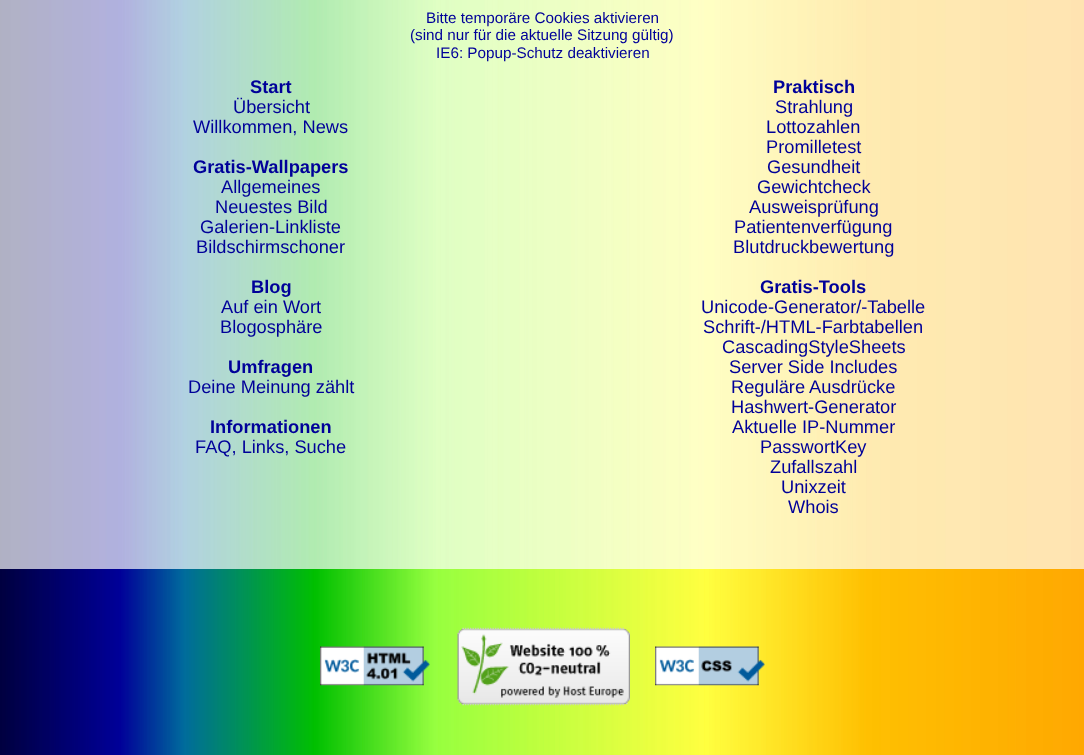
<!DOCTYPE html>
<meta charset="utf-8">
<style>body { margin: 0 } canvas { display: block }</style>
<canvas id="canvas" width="1084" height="755"></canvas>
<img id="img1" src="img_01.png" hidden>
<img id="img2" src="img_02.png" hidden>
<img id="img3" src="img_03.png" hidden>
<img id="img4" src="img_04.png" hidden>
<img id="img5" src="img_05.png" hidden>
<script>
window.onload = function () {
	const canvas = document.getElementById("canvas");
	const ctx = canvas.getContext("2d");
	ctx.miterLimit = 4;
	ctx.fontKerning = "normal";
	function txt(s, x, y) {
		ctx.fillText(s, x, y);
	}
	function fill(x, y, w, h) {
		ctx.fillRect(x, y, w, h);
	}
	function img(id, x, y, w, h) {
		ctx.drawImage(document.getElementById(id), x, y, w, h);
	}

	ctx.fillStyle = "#FFFFFF";
	fill(0, 0, 1084, 755);
	img("img1", 0, 0, 1084, 569);
	img("img2", 0, 569, 1084, 186);
	img("img3", 320, 646, 110, 40);
	img("img4", 457, 627, 173, 79);
	img("img5", 655, 646, 110, 40);
	ctx.font = "15.25px Liberation Sans";
	ctx.fillStyle = "#000099";
	txt("Bitte temporäre Cookies aktivieren", 426, 23);
	txt("(sind nur für die aktuelle Sitzung gültig)", 410, 40);
	txt("IE6: Popup-Schutz deaktivieren", 436, 58);
	ctx.font = "bold 18.25px Liberation Sans";
	txt("Start", 250, 93);
	ctx.font = "18.25px Liberation Sans";
	txt("Übersicht", 233, 113);
	txt("Willkommen, News", 193, 133);
	ctx.font = "bold 18.25px Liberation Sans";
	txt("Gratis-Wallpapers", 193, 173);
	ctx.font = "18.25px Liberation Sans";
	txt("Allgemeines", 221, 193);
	txt("Neuestes Bild", 215, 213);
	txt("Galerien-Linkliste", 200, 233);
	txt("Bildschirmschoner", 196, 253);
	ctx.font = "bold 18.25px Liberation Sans";
	txt("Blog", 251, 293);
	ctx.font = "18.25px Liberation Sans";
	txt("Auf ein Wort", 221, 313);
	txt("Blogosphäre", 220, 333);
	ctx.font = "bold 18.25px Liberation Sans";
	txt("Umfragen", 228, 373);
	ctx.font = "18.25px Liberation Sans";
	txt("Deine Meinung zählt", 188, 393);
	ctx.font = "bold 18.25px Liberation Sans";
	txt("Informationen", 210, 433);
	ctx.font = "18.25px Liberation Sans";
	txt("FAQ, Links, Suche", 195, 453);
	ctx.font = "bold 18.25px Liberation Sans";
	txt("Praktisch", 773, 93);
	ctx.font = "18.25px Liberation Sans";
	txt("Strahlung", 775, 113);
	txt("Lottozahlen", 766, 133);
	txt("Promilletest", 766, 153);
	txt("Gesundheit", 767, 173);
	txt("Gewichtcheck", 757, 193);
	txt("Ausweisprüfung", 749, 213);
	txt("Patientenverfügung", 734, 233);
	txt("Blutdruckbewertung", 733, 253);
	ctx.font = "bold 18.25px Liberation Sans";
	txt("Gratis-Tools", 760, 293);
	ctx.font = "18.25px Liberation Sans";
	txt("Unicode-Generator/-Tabelle", 701, 313);
	txt("Schrift-/HTML-Farbtabellen", 703, 333);
	txt("CascadingStyleSheets", 722, 353);
	txt("Server Side Includes", 729, 373);
	txt("Reguläre Ausdrücke", 731, 393);
	txt("Hashwert-Generator", 731, 413);
	txt("Aktuelle IP-Nummer", 732, 433);
	txt("PasswortKey", 760, 453);
	txt("Zufallszahl", 770, 473);
	txt("Unixzeit", 781, 493);
	txt("Whois", 788, 513);
};
</script>
